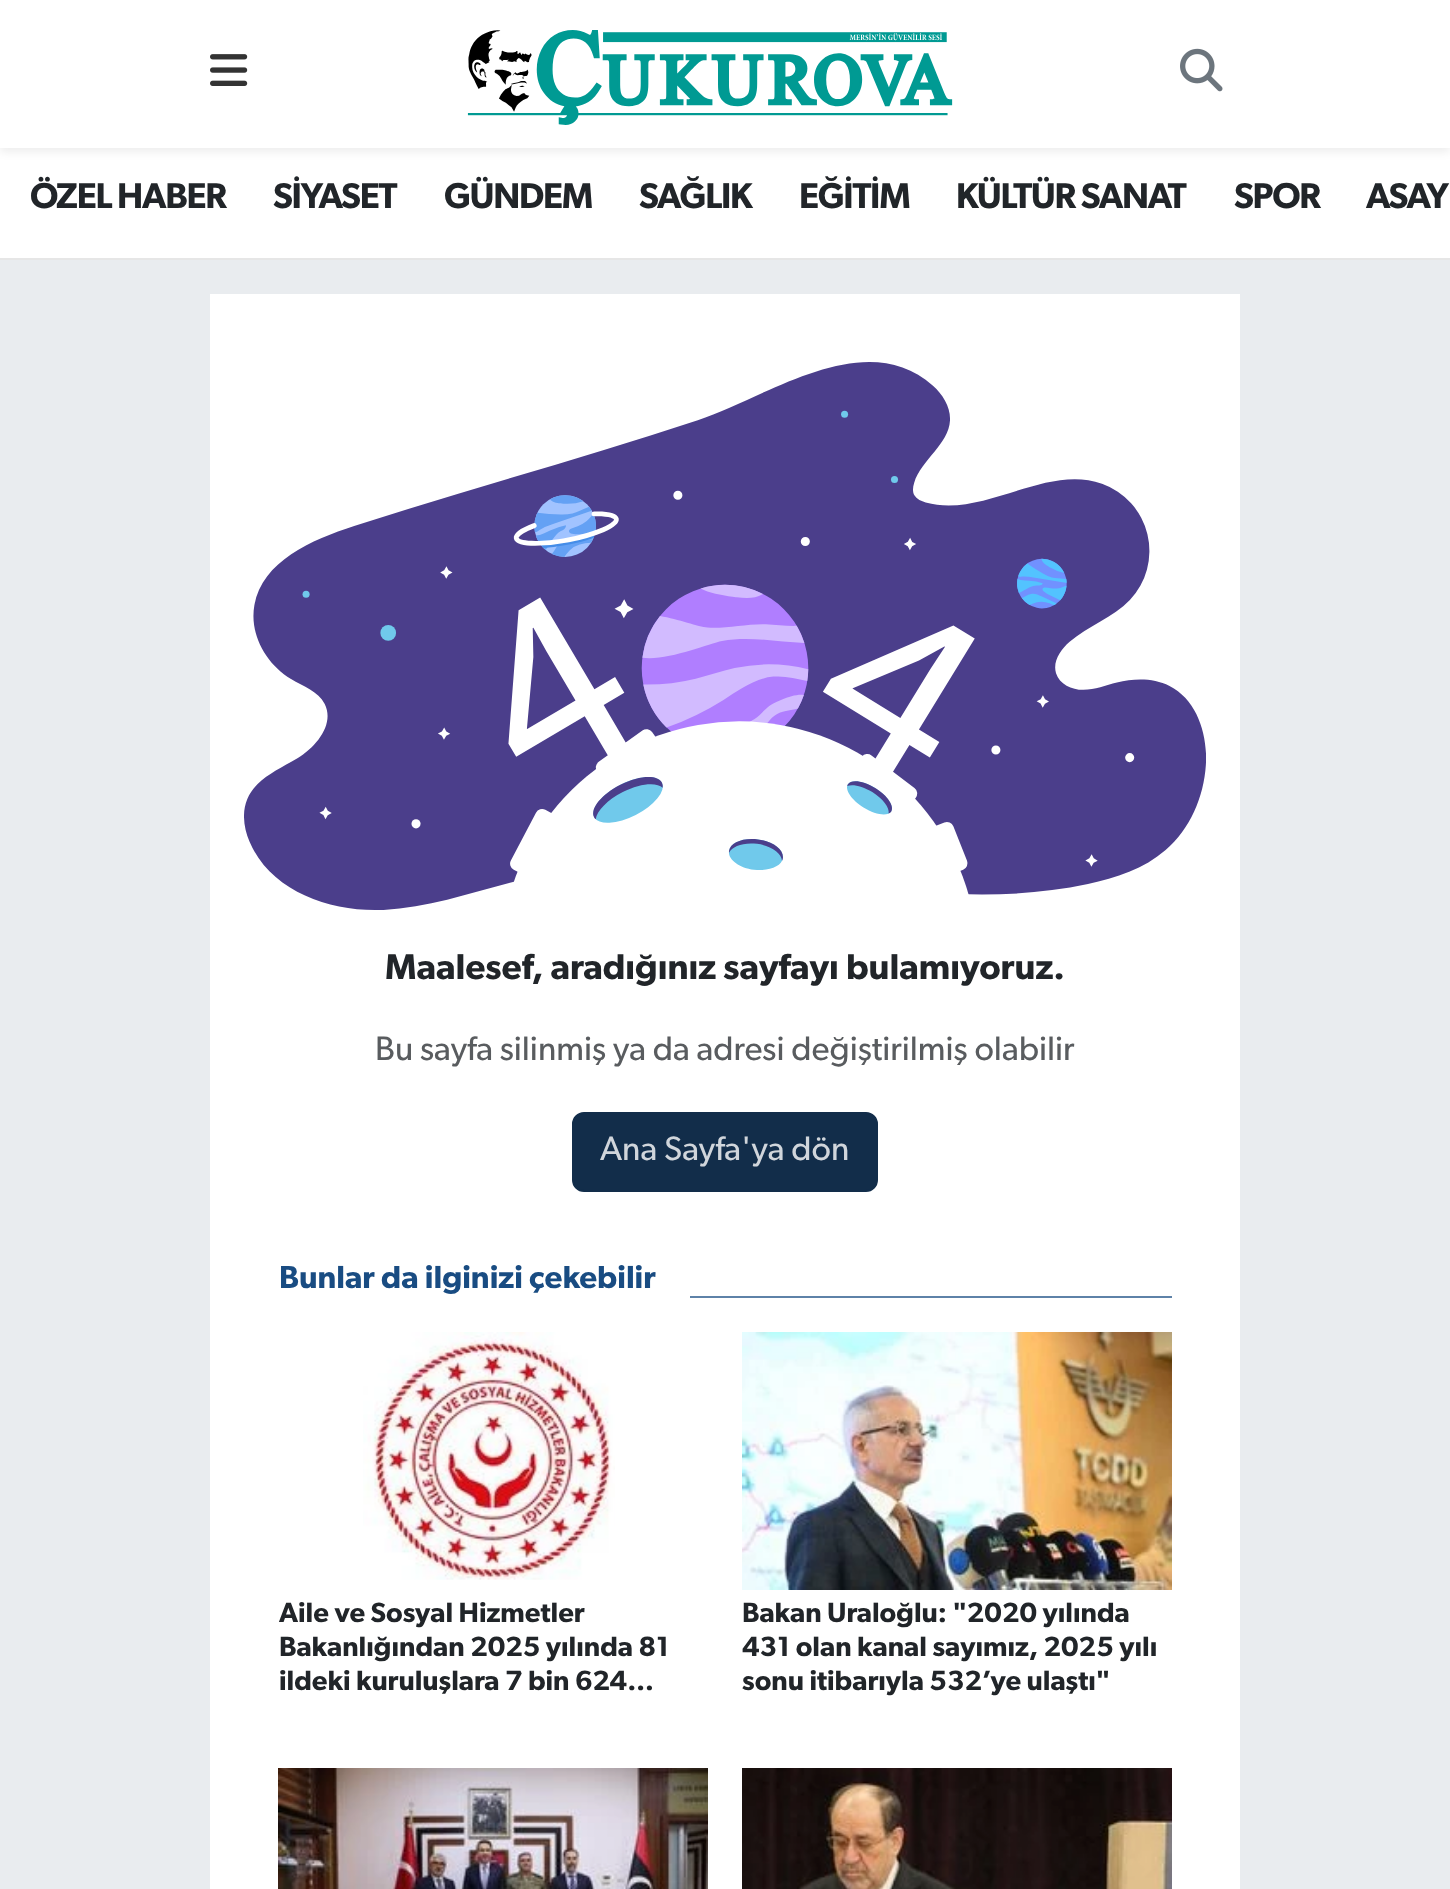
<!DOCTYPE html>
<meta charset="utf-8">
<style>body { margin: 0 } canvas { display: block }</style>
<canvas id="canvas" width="1450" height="1889"></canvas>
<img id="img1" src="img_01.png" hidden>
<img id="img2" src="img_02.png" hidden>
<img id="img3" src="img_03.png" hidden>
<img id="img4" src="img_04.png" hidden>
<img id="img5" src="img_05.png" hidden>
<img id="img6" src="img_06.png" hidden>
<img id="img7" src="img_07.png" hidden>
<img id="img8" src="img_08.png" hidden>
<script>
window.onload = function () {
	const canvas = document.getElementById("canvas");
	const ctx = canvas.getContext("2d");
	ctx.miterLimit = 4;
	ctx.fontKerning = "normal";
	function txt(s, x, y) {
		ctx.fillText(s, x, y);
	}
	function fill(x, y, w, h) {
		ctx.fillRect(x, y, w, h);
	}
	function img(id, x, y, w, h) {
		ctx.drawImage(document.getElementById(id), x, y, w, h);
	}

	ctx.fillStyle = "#E9ECEF";
	fill(0, 0, 1450, 1889);
	ctx.fillStyle = "#FFFFFF";
	fill(0, 148, 1450, 110);
	ctx.fillStyle = "rgba(0, 0, 0, 0.07)";
	ctx.filter = "blur(4px)";
	ctx.beginPath();
	ctx.rect(0, 4, 1450, 148);
	ctx.fill();
	ctx.filter = "none";
	ctx.fillStyle = "#FFFFFF";
	fill(0, 0, 1450, 148);
	img("img1", 210, 54, 38, 32);
	img("img2", 467, 30, 486, 95);
	img("img3", 1180, 48, 43, 44);
	ctx.fillStyle = "#E6E6E6";
	fill(0, 258, 1450, 2);
	ctx.fillStyle = "#FFFFFF";
	fill(210, 294, 1030, 1595);
	img("img4", 244, 362, 962, 548);
	ctx.fillStyle = "#122D4A";
	ctx.beginPath();
	ctx.roundRect(573, 1113, 304, 78, 11);
	ctx.fill();
	ctx.strokeStyle = "#122D4A";
	ctx.lineWidth = 2;
	ctx.stroke();
	ctx.fillStyle = "#5E82A8";
	fill(690, 1296, 482, 2);
	img("img5", 363, 1332, 252, 248);
	img("img6", 742, 1332, 430, 258);
	img("img7", 278, 1768, 430, 121);
	img("img8", 742, 1768, 430, 121);
	ctx.letterSpacing = "-1.25px";
	ctx.font = "600 36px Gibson";
	ctx.fillStyle = "#212529";
	txt("ÖZEL HABER", 30, 208);
	txt("SİYASET", 273, 208);
	txt("GÜNDEM", 444, 208);
	txt("SAĞLIK", 639, 208);
	txt("EĞİTİM", 799, 208);
	txt("KÜLTÜR SANAT", 956, 208);
	txt("SPOR", 1234, 208);
	txt("ASAY", 1366, 208);
	ctx.letterSpacing = "0px";
	txt("Maalesef, aradığınız sayfayı bulamıyoruz.", 385, 979);
	ctx.font = "34px Gibson";
	ctx.fillStyle = "#595C5F";
	txt("Bu sayfa silinmiş ya da adresi değiştirilmiş olabilir", 375, 1060);
	ctx.fillStyle = "#D0D5DB";
	txt("Ana Sayfa'ya dön", 600, 1160);
	ctx.font = "600 32px Gibson";
	ctx.fillStyle = "#194C82";
	txt("Bunlar da ilginizi çekebilir", 279, 1288);
	ctx.font = "600 28px Gibson";
	ctx.fillStyle = "#212529";
	txt("Aile ve Sosyal Hizmetler", 279, 1622);
	txt("Bakanlığından 2025 yılında 81", 279, 1656);
	txt("ildeki kuruluşlara 7 bin 624…", 279, 1690);
	txt("Bakan Uraloğlu: \"2020 yılında", 742, 1622);
	txt("431 olan kanal sayımız, 2025 yılı", 742, 1656);
	txt("sonu itibarıyla 532’ye ulaştı\"", 742, 1690);
};
</script>
